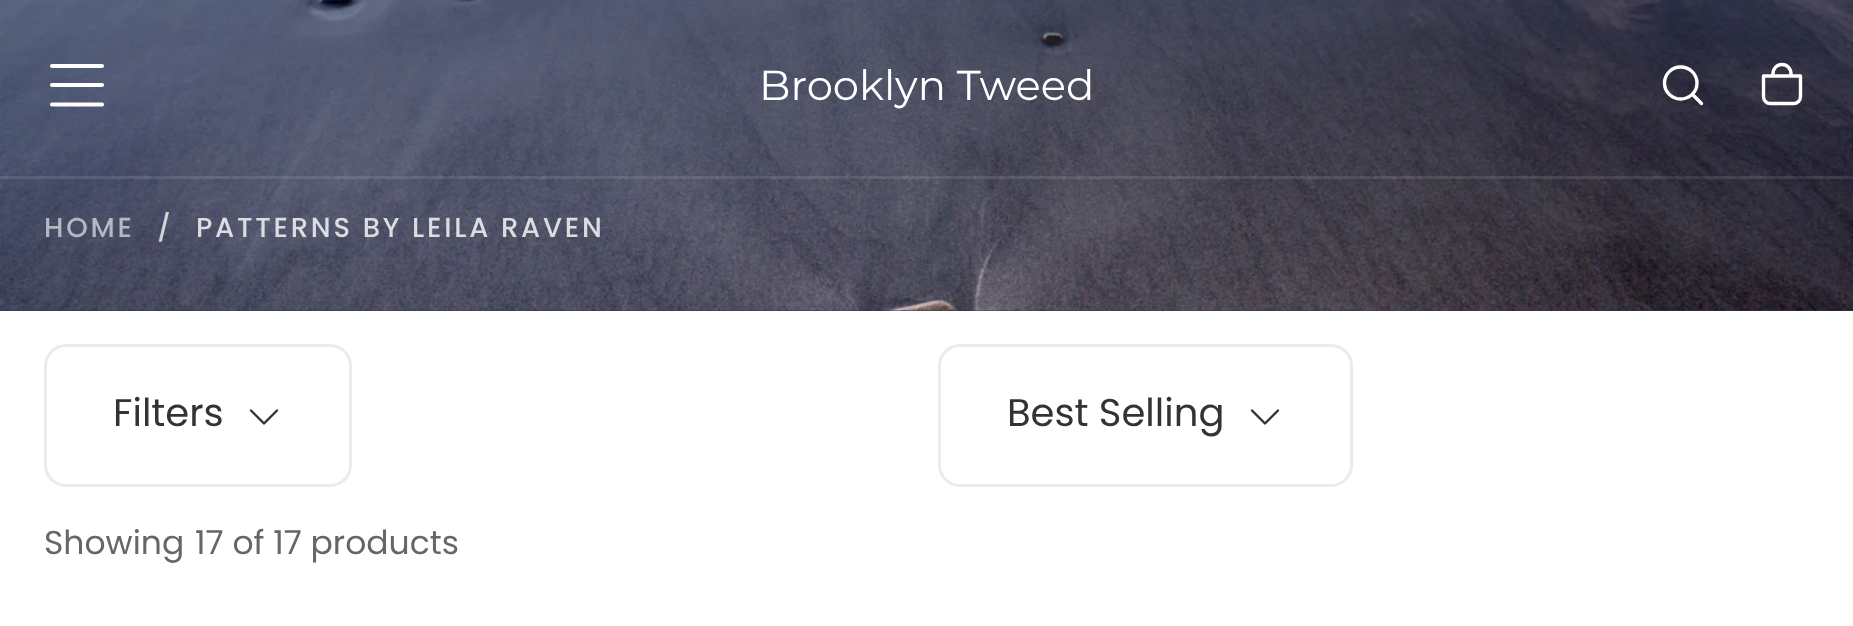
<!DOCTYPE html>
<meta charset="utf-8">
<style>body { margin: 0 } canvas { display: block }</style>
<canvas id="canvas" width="1853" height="626"></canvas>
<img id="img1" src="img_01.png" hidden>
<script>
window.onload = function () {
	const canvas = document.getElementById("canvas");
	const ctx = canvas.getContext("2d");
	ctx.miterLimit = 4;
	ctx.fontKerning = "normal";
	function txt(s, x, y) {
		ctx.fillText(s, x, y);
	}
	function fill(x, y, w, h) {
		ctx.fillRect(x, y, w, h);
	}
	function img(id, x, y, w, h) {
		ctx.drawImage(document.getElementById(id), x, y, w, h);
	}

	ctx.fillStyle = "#FFFFFF";
	fill(0, 0, 1853, 626);
	ctx.fillStyle = "#2A3A5F";
	fill(0, 310, 1853, 1);
	img("img1", 0, 0, 1853, 311);
	ctx.fillStyle = "rgba(255, 255, 255, 0.1)";
	fill(0, 176, 1853, 3);
	ctx.beginPath();
	ctx.moveTo(52, 85);
	ctx.lineTo(102, 85);
	ctx.moveTo(52, 66);
	ctx.lineTo(102, 66);
	ctx.moveTo(52, 104.5);
	ctx.lineTo(102, 104.5);
	ctx.strokeStyle = "#FFFFFF";
	ctx.lineWidth = 4.1;
	ctx.lineCap = "round";
	ctx.stroke();
	ctx.beginPath();
	ctx.moveTo(1701.5, 103.5);
	ctx.lineTo(1692.5, 94.5);
	ctx.moveTo(1697, 83);
	ctx.bezierCurveTo(1697, 92, 1689.5, 99, 1680.5, 99);
	ctx.bezierCurveTo(1672, 99, 1664.5, 92, 1664.5, 83);
	ctx.bezierCurveTo(1664.5, 74, 1672, 67, 1680.5, 67);
	ctx.bezierCurveTo(1689.5, 67, 1697, 74, 1697, 83);
	ctx.closePath();
	ctx.lineWidth = 3.4;
	ctx.stroke();
	ctx.beginPath();
	ctx.moveTo(1763.5, 76);
	ctx.lineTo(1800.5, 76);
	ctx.lineTo(1800.5, 96.5);
	ctx.bezierCurveTo(1800.5, 100.5, 1797.5, 103.5, 1793.5, 103.5);
	ctx.lineTo(1770.5, 103.5);
	ctx.bezierCurveTo(1766.5, 103.5, 1763.5, 100.5, 1763.5, 96.5);
	ctx.closePath();
	ctx.moveTo(1773, 76);
	ctx.lineTo(1773, 74);
	ctx.bezierCurveTo(1773, 68.5, 1777, 64.5, 1782, 64.5);
	ctx.bezierCurveTo(1787, 64.5, 1791, 68.5, 1791, 74);
	ctx.lineTo(1791, 76);
	ctx.lineCap = "butt";
	ctx.lineJoin = "round";
	ctx.stroke();
	ctx.beginPath();
	ctx.roundRect(45.5, 345.5, 305, 140, 20.5);
	ctx.strokeStyle = "#EBEBEB";
	ctx.lineWidth = 3;
	ctx.lineJoin = "miter";
	ctx.stroke();
	ctx.beginPath();
	ctx.moveTo(251, 410.5);
	ctx.lineTo(264, 423.5);
	ctx.lineTo(277, 410.5);
	ctx.strokeStyle = "#333333";
	ctx.lineWidth = 2.4;
	ctx.lineCap = "round";
	ctx.lineJoin = "round";
	ctx.stroke();
	ctx.beginPath();
	ctx.roundRect(939.5, 345.5, 412, 140, 20.5);
	ctx.strokeStyle = "#EBEBEB";
	ctx.lineWidth = 3;
	ctx.lineJoin = "miter";
	ctx.stroke();
	ctx.beginPath();
	ctx.moveTo(1252, 410.5);
	ctx.lineTo(1265, 423.5);
	ctx.lineTo(1278, 410.5);
	ctx.strokeStyle = "#333333";
	ctx.lineWidth = 2.4;
	ctx.lineJoin = "round";
	ctx.stroke();
	ctx.font = "41.75px Montserrat";
	ctx.fillStyle = "#FFFFFF";
	txt("Brooklyn Tweed", 759, 100);
	ctx.letterSpacing = "2.75px";
	ctx.font = "500 27.5px Poppins";
	ctx.fillStyle = "#B6B8C1";
	txt("HOME", 44, 237);
	ctx.save();
	ctx.beginPath();
	ctx.rect(44, 212, 561, 33);
	ctx.clip();
	ctx.fillStyle = "#D2D3D8";
	txt("/", 157, 237);
	ctx.restore();
	ctx.fillStyle = "#DCDDE1";
	txt("PATTERNS BY LEILA RAVEN", 196, 237);
	ctx.letterSpacing = "0px";
	ctx.font = "38.5px Poppins";
	ctx.fillStyle = "#333333";
	txt("Filters", 113, 426);
	txt("Best Selling", 1007, 426);
	ctx.font = "33px Poppins";
	ctx.fillStyle = "#666666";
	txt("Showing", 44, 554);
	txt("17 of 17 products", 195, 554);
};
</script>
